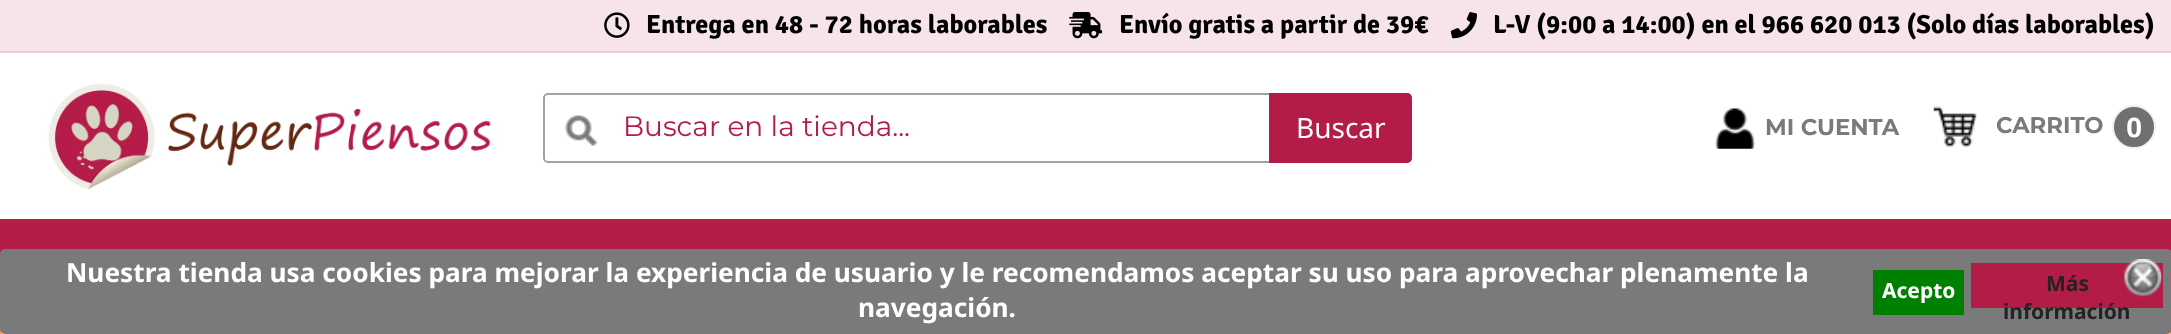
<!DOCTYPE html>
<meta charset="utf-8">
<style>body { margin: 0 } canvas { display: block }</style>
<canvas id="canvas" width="2171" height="334"></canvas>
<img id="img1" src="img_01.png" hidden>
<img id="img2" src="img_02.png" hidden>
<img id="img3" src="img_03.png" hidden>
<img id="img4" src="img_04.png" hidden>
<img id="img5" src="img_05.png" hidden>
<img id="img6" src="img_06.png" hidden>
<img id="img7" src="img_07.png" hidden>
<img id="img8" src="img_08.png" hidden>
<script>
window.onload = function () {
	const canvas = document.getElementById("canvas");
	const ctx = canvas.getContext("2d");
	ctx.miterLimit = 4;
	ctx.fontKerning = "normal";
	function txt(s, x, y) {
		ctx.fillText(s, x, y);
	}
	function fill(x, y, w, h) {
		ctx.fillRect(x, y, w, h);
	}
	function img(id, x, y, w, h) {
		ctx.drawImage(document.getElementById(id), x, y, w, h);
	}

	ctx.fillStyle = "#FFFFFF";
	fill(0, 0, 2171, 334);
	ctx.fillStyle = "#F6E4E9";
	fill(0, 0, 2171, 51);
	img("img1", 604, 12, 26, 26);
	img("img2", 1069, 12, 34, 27);
	img("img3", 1450, 12, 27, 27);
	ctx.fillStyle = "#EECCD6";
	fill(0, 51, 2171, 2);
	img("img4", 48, 83, 443, 107);
	ctx.beginPath();
	ctx.roundRect(544, 94, 867, 68, 4);
	ctx.strokeStyle = "#A1A1A1";
	ctx.lineWidth = 2;
	ctx.stroke();
	img("img5", 564, 115, 34, 31);
	ctx.fillStyle = "#B31C47";
	ctx.beginPath();
	ctx.roundRect(1269, 93, 143, 70, [0, 5, 5, 0]);
	ctx.fill();
	img("img6", 1715, 108, 41, 41);
	img("img7", 1933, 106, 44, 41);
	ctx.fillStyle = "#707070";
	ctx.beginPath();
	ctx.arc(2134, 127, 21, 0, Math.PI * 2);
	ctx.fill();
	ctx.strokeStyle = "#F0F0F0";
	ctx.stroke();
	ctx.fillStyle = "#B41D48";
	fill(0, 219, 273, 35);
	fill(273, 219, 1708, 30);
	fill(1981, 219, 190, 32);
	ctx.fillStyle = "#FFE1CB";
	fill(2, 333, 2168, 1);
	ctx.strokeStyle = "#FF9A52";
	ctx.strokeRect(1, 288, 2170, 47);
	ctx.fillStyle = "#7A7A7A";
	ctx.beginPath();
	ctx.roundRect(1, 250, 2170, 83, 4);
	ctx.fill();
	ctx.strokeStyle = "#7A7A7A";
	ctx.stroke();
	ctx.fillStyle = "#008000";
	fill(1873, 270, 91, 45);
	ctx.fillStyle = "#B31C47";
	fill(1971, 263, 192, 45);
	img("img8", 2124, 259, 38, 38);
	ctx.font = "bold 26.25px Signika";
	ctx.fillStyle = "#000000";
	txt("Entrega en 48 - 72 horas laborables", 646, 33);
	txt("Envío gratis a partir de 39€", 1119, 33);
	txt("L-V (9:00 a 14:00) en el 966 620 013 (Solo días laborables)", 1493, 33);
	ctx.font = "28px Montserrat";
	ctx.fillStyle = "#B31C47";
	txt("Buscar en la tienda...", 623, 136);
	ctx.font = "28px Noto Sans";
	ctx.fillStyle = "#FFFFFF";
	txt("Buscar", 1296, 138);
	ctx.font = "bold 22.75px Montserrat";
	ctx.fillStyle = "#7A7A7A";
	txt("MI CUENTA", 1765, 135);
	txt("CARRITO", 1996, 133);
	ctx.font = "600 30px Signika";
	ctx.fillStyle = "#FFFFFF";
	txt("0", 2126, 137);
	ctx.font = "bold 26.25px Noto Sans";
	txt("Nuestra tienda usa cookies para mejorar la experiencia de usuario y le recomendamos aceptar su uso para aprovechar plenamente la", 66, 282);
	txt("navegación.", 858, 317);
	ctx.font = "bold 21px Noto Sans";
	txt("Acepto", 1882, 298);
	ctx.fillStyle = "#232323";
	txt("Más", 2046, 291);
	txt("información", 2003, 319);
};
</script>
